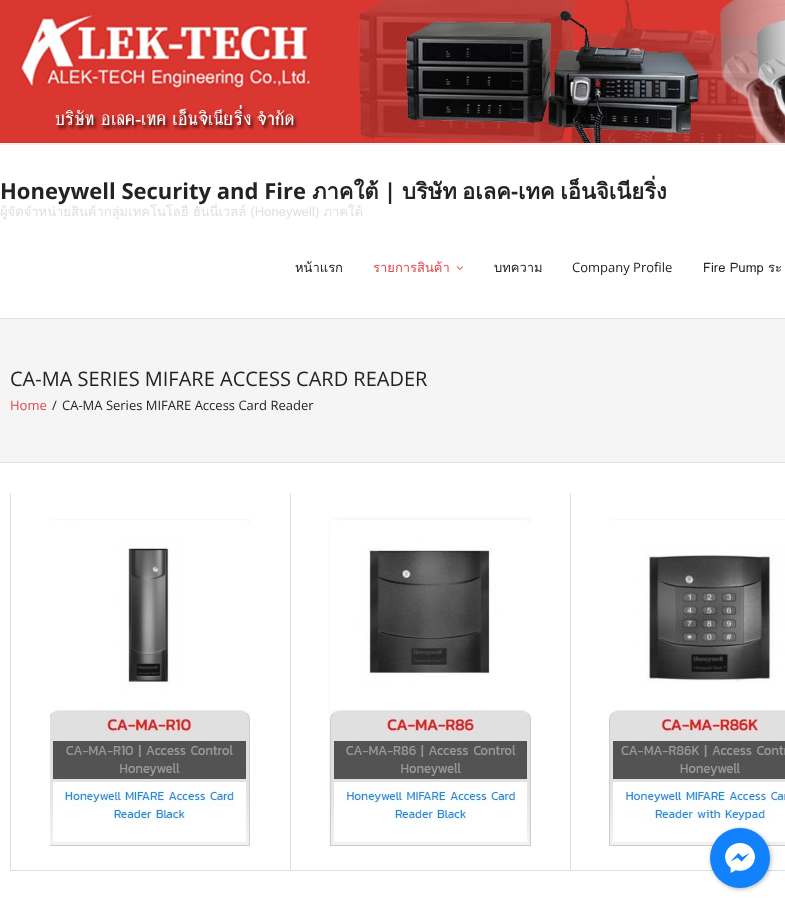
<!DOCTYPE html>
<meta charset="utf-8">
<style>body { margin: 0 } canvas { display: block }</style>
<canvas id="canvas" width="785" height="903"></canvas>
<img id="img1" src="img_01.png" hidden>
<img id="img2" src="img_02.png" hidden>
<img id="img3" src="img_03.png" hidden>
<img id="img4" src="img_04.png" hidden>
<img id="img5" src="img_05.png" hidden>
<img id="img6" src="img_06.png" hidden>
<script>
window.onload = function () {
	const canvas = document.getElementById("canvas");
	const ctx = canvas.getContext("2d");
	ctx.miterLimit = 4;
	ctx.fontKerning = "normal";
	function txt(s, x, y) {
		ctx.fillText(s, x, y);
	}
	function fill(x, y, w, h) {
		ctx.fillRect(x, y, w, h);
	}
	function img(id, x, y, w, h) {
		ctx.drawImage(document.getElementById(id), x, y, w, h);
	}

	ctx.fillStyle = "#FFFFFF";
	fill(0, 0, 785, 903);
	img("img1", 0, 0, 785, 143);
	ctx.fillStyle = "#F1F1F1";
	fill(0, 143, 785, 2);
	ctx.fillStyle = "#E3E3E3";
	fill(0, 318, 785, 1);
	img("img2", 456, 266, 7, 4);
	ctx.fillStyle = "#F5F5F5";
	fill(0, 319, 785, 143);
	ctx.fillStyle = "#E3E3E3";
	fill(0, 462, 785, 1);
	ctx.fillStyle = "#DDDDDD";
	fill(10, 493, 1, 378);
	fill(570, 870, 215, 1);
	fill(570, 493, 1, 378);
	fill(290, 870, 281, 1);
	fill(290, 493, 1, 378);
	fill(10, 870, 281, 1);
	img("img3", 50, 519, 200, 327);
	img("img4", 329, 517, 202, 329);
	img("img5", 609, 519, 176, 327);
	ctx.fillStyle = "rgba(0, 0, 0, 0.3)";
	ctx.filter = "blur(2px)";
	ctx.beginPath();
	ctx.roundRect(711, 829, 60, 60, 30);
	ctx.fill();
	ctx.filter = "none";
	ctx.fillStyle = "#1182FC";
	ctx.beginPath();
	ctx.arc(740, 858, 30, 0, Math.PI * 2);
	ctx.fill();
	img("img6", 725, 843, 30, 30);
	ctx.font = "bold 22px Open Sans";
	ctx.fillStyle = "#232323";
	txt("Honeywell Security and Fire", 0, 199);
	ctx.font = "bold 22px Loma";
	txt("ภาคใต้", 312, 199);
	ctx.font = "bold 22px Open Sans";
	txt("|", 384, 199);
	ctx.font = "bold 22px Loma";
	txt("บริษัท", 402, 199);
	txt("อเลค", 462, 199);
	ctx.font = "bold 22px Open Sans";
	txt("-", 511, 199);
	ctx.wordSpacing = "-2px";
	ctx.font = "bold 22px Loma";
	txt("เทค เอ็นจิเนียริ่ง", 518, 199);
	ctx.wordSpacing = "0px";
	ctx.font = "13px Loma";
	ctx.fillStyle = "#E0E0E0";
	txt("ผู้จัดจำหน่ายสินค้ากลุ่มเทคโนโลยี ฮันนี่เวลล์ (Honeywell) ภาคใต้", 0, 216);
	ctx.fillStyle = "#232323";
	txt("หน้าแรก", 295, 272);
	ctx.fillStyle = "#E0484C";
	txt("รายการสินค้า", 373, 272);
	ctx.fillStyle = "#232323";
	txt("บทความ", 494, 272);
	ctx.font = "13px Open Sans";
	txt("Company Profile", 572, 272);
	ctx.font = "13px Loma";
	txt("Fire Pump ระ", 703, 272);
	ctx.font = "20px Open Sans";
	txt("CA-MA SERIES MIFARE ACCESS CARD READER", 10, 386);
	ctx.font = "13px Open Sans";
	ctx.fillStyle = "#E0484C";
	txt("Home", 10, 410);
	ctx.fillStyle = "#232323";
	txt("/", 52, 410);
	txt("CA-MA Series MIFARE Access Card Reader", 62, 410);
};
</script>
